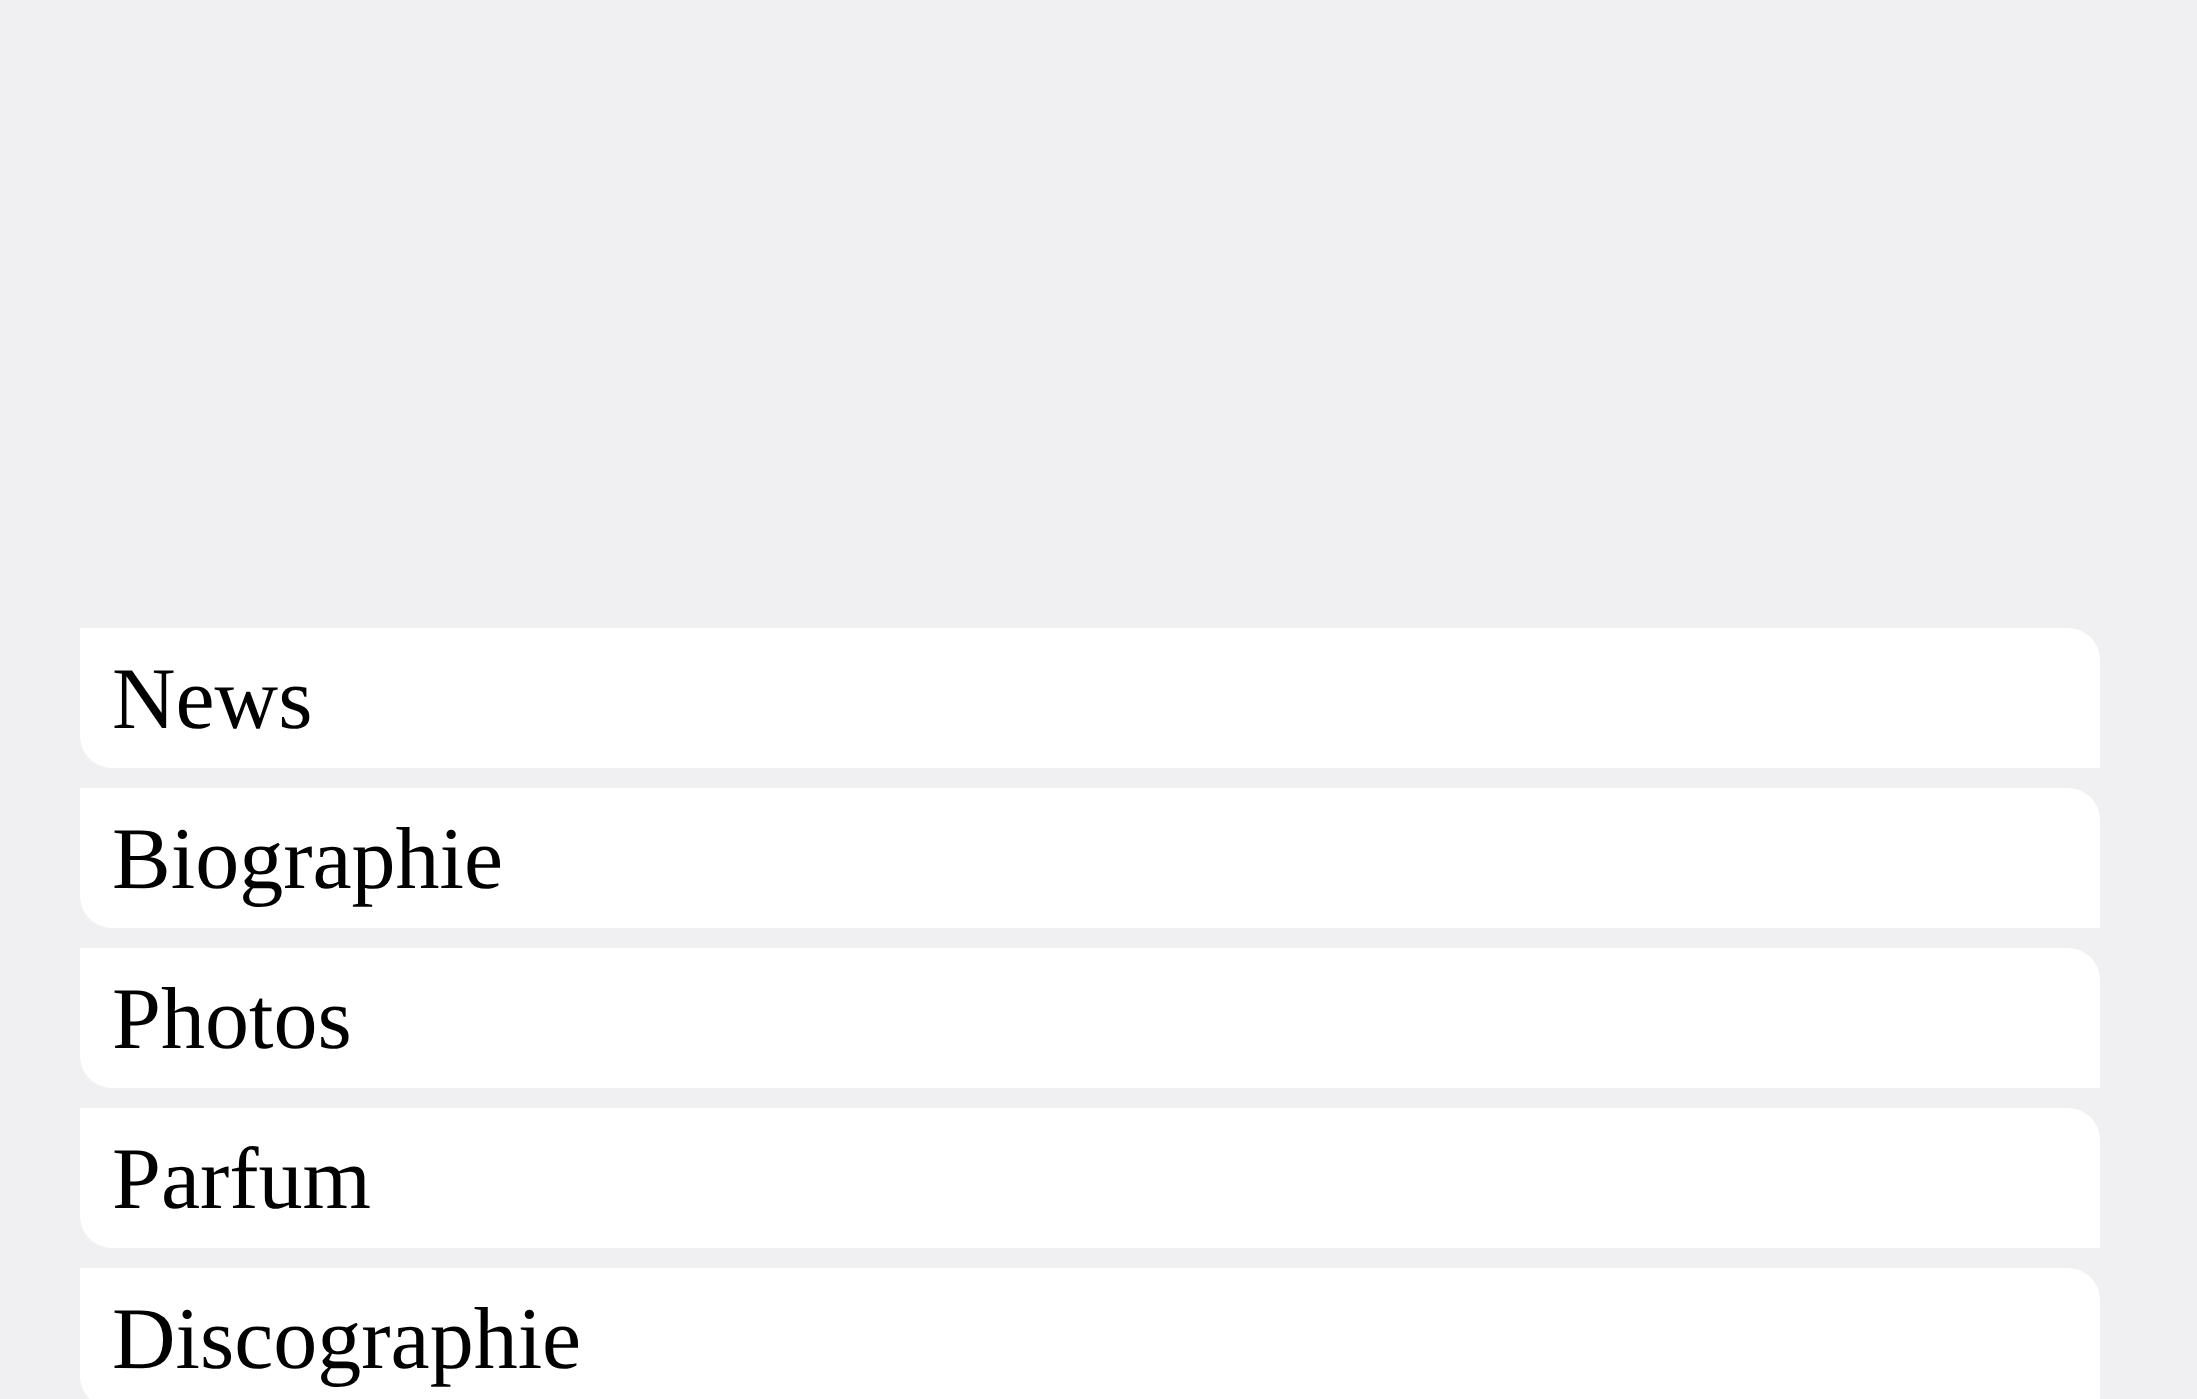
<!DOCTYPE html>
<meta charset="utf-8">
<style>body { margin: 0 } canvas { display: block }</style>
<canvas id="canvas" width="2197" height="1399"></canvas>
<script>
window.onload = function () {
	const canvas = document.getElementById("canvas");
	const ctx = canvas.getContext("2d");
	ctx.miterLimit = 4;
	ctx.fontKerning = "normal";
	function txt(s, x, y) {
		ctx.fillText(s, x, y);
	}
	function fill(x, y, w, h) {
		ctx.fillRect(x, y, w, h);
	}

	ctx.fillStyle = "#F0F0F2";
	fill(0, 0, 2197, 1399);
	ctx.fillStyle = "#FFFFFF";
	ctx.beginPath();
	ctx.roundRect(80, 628, 2020, 140, [0, 32, 0, 32]);
	ctx.fill();
	ctx.beginPath();
	ctx.roundRect(80, 788, 2020, 140, [0, 32, 0, 32]);
	ctx.fill();
	ctx.beginPath();
	ctx.roundRect(80, 948, 2020, 140, [0, 32, 0, 32]);
	ctx.fill();
	ctx.beginPath();
	ctx.roundRect(80, 1108, 2020, 140, [0, 32, 0, 32]);
	ctx.fill();
	ctx.beginPath();
	ctx.moveTo(80, 1268);
	ctx.lineTo(2068, 1268);
	ctx.bezierCurveTo(2085.5, 1268, 2100, 1282.5, 2100, 1300);
	ctx.lineTo(2100, 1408);
	ctx.lineTo(112, 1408);
	ctx.bezierCurveTo(94.5, 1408, 80, 1393.5, 80, 1376);
	ctx.closePath();
	ctx.fill();
	ctx.font = "88px Liberation Serif";
	ctx.fillStyle = "#000000";
	txt("News", 112, 728);
	txt("Biographie", 112, 888);
	txt("Photos", 112, 1048);
	txt("Parfum", 112, 1208);
	txt("Discographie", 112, 1368);
};
</script>
